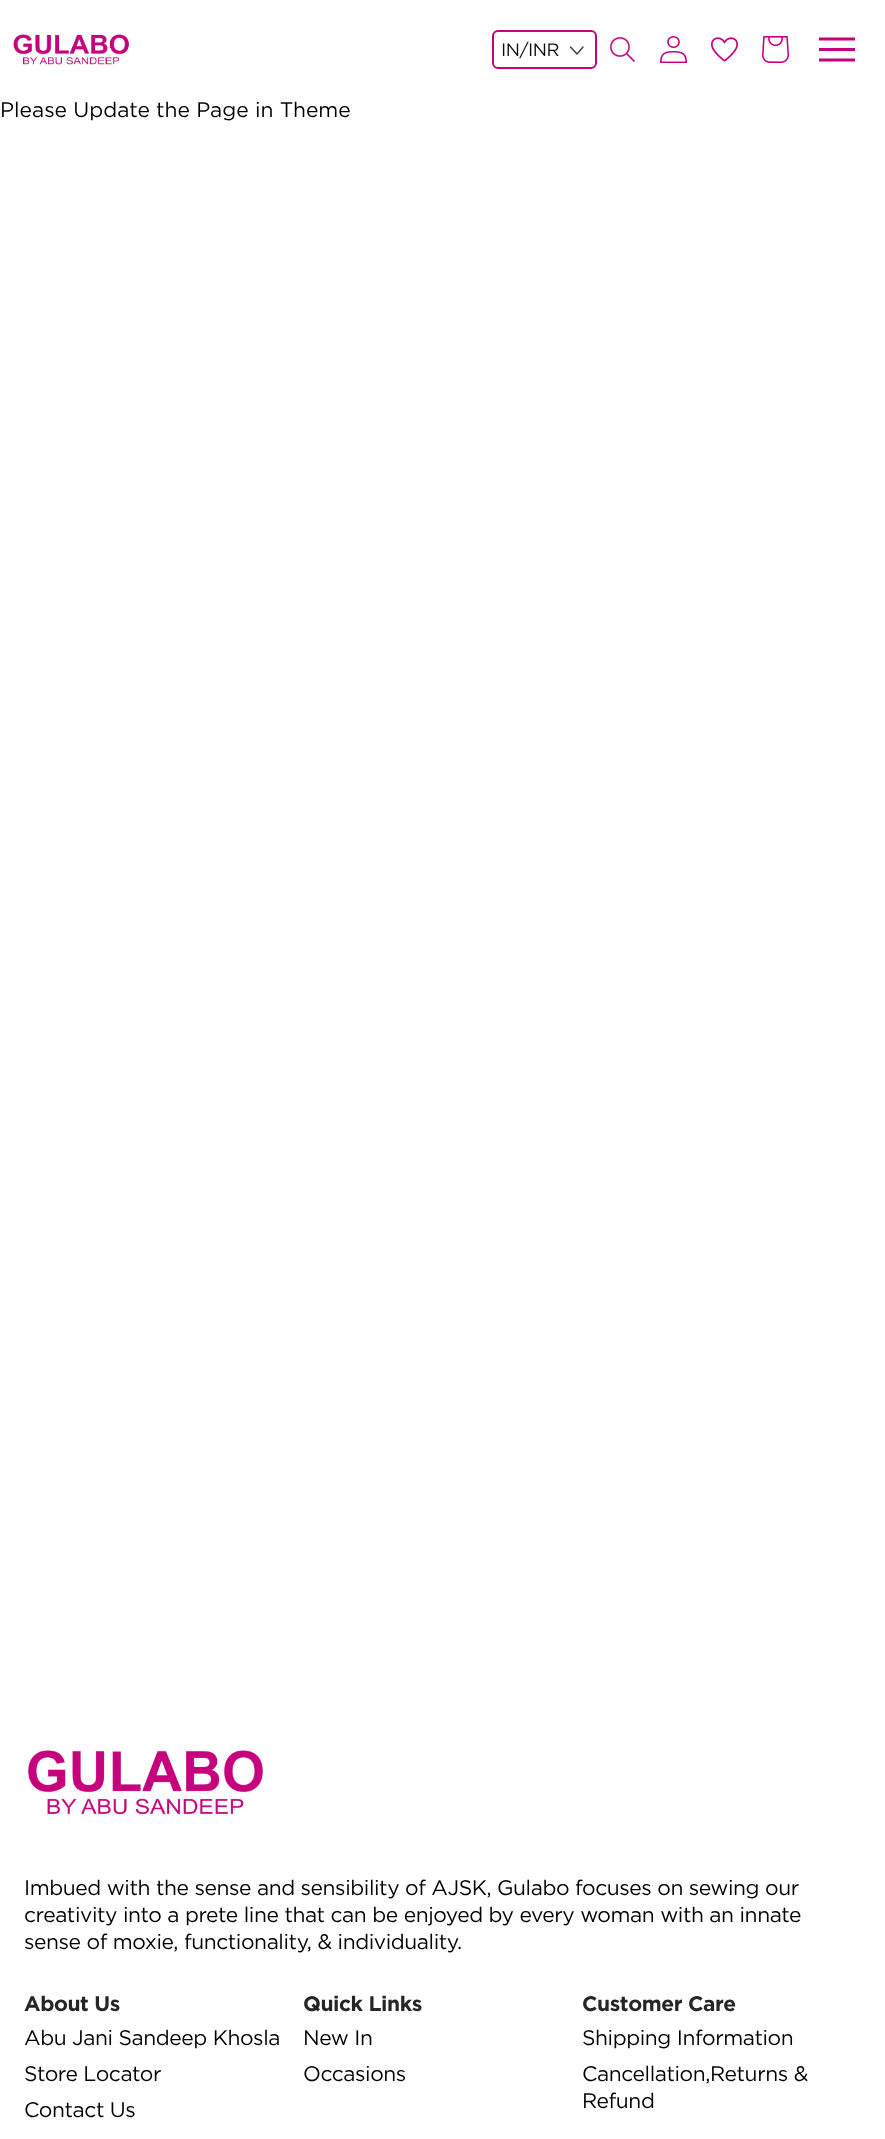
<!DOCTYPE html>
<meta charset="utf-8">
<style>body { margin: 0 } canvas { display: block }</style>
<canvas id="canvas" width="885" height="2139"></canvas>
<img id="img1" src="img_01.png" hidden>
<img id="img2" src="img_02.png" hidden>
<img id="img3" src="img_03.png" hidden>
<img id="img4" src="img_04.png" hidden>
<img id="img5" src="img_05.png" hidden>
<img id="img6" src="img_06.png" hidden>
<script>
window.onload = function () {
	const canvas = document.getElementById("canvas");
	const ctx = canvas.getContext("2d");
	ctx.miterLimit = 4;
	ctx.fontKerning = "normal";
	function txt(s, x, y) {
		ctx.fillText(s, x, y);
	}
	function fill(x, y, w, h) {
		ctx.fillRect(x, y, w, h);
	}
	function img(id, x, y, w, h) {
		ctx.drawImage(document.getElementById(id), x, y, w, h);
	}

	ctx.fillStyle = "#FFFFFF";
	fill(0, 0, 885, 2139);
	img("img1", 13, 34, 116, 31);
	ctx.beginPath();
	ctx.roundRect(493, 31, 103, 37, 5);
	ctx.strokeStyle = "#C6007E";
	ctx.lineWidth = 2;
	ctx.stroke();
	ctx.beginPath();
	ctx.moveTo(583, 47);
	ctx.lineTo(577, 54);
	ctx.moveTo(570.5, 47);
	ctx.lineTo(577, 54);
	ctx.strokeStyle = "#41434C";
	ctx.lineWidth = 1.5;
	ctx.lineCap = "round";
	ctx.stroke();
	img("img2", 610, 37, 25, 25);
	img("img3", 660, 36, 27, 27);
	img("img4", 711, 37, 27, 25);
	img("img5", 762, 36, 27, 27);
	ctx.fillStyle = "#C6007E";
	ctx.beginPath();
	ctx.moveTo(819, 61.5);
	ctx.lineTo(819, 58.5);
	ctx.lineTo(855, 58.5);
	ctx.lineTo(855, 61.5);
	ctx.closePath();
	ctx.moveTo(819, 51);
	ctx.lineTo(819, 48);
	ctx.lineTo(855, 48);
	ctx.lineTo(855, 51);
	ctx.closePath();
	ctx.moveTo(819, 40.5);
	ctx.lineTo(819, 37.5);
	ctx.lineTo(855, 37.5);
	ctx.lineTo(855, 40.5);
	ctx.closePath();
	ctx.fill();
	img("img6", 27, 1749, 237, 67);
	ctx.letterSpacing = "-0.5px";
	ctx.font = "18px Gotham";
	ctx.fillStyle = "#110D0D";
	txt("IN/INR", 501, 56);
	ctx.letterSpacing = "0px";
	ctx.font = "21px Gotham";
	ctx.fillStyle = "#000000";
	txt("Please Update the Page in Theme", 0, 117);
	ctx.letterSpacing = "-0.42px";
	txt("Imbued with the sense and sensibility of AJSK, Gulabo focuses on sewing our", 24, 1895);
	txt("creativity into a prete line that can be enjoyed by every woman with an innate", 24, 1922);
	txt("sense of moxie, functionality, & individuality.", 24, 1949);
	ctx.font = "bold 21px Gotham";
	ctx.fillStyle = "#262627";
	txt("About Us", 24, 2011);
	ctx.font = "21px Gotham";
	ctx.fillStyle = "#000000";
	txt("Abu Jani Sandeep Khosla", 24, 2045);
	txt("Store Locator", 24, 2081);
	txt("Contact Us", 24, 2117);
	ctx.font = "bold 21px Gotham";
	ctx.fillStyle = "#262627";
	txt("Quick Links", 303, 2011);
	ctx.font = "21px Gotham";
	ctx.fillStyle = "#000000";
	txt("New In", 303, 2045);
	txt("Occasions", 303, 2081);
	ctx.font = "bold 21px Gotham";
	ctx.fillStyle = "#262627";
	txt("Customer Care", 582, 2011);
	ctx.font = "21px Gotham";
	ctx.fillStyle = "#000000";
	txt("Shipping Information", 582, 2045);
	txt("Cancellation,Returns &", 582, 2081);
	txt("Refund", 582, 2108);
};
</script>
